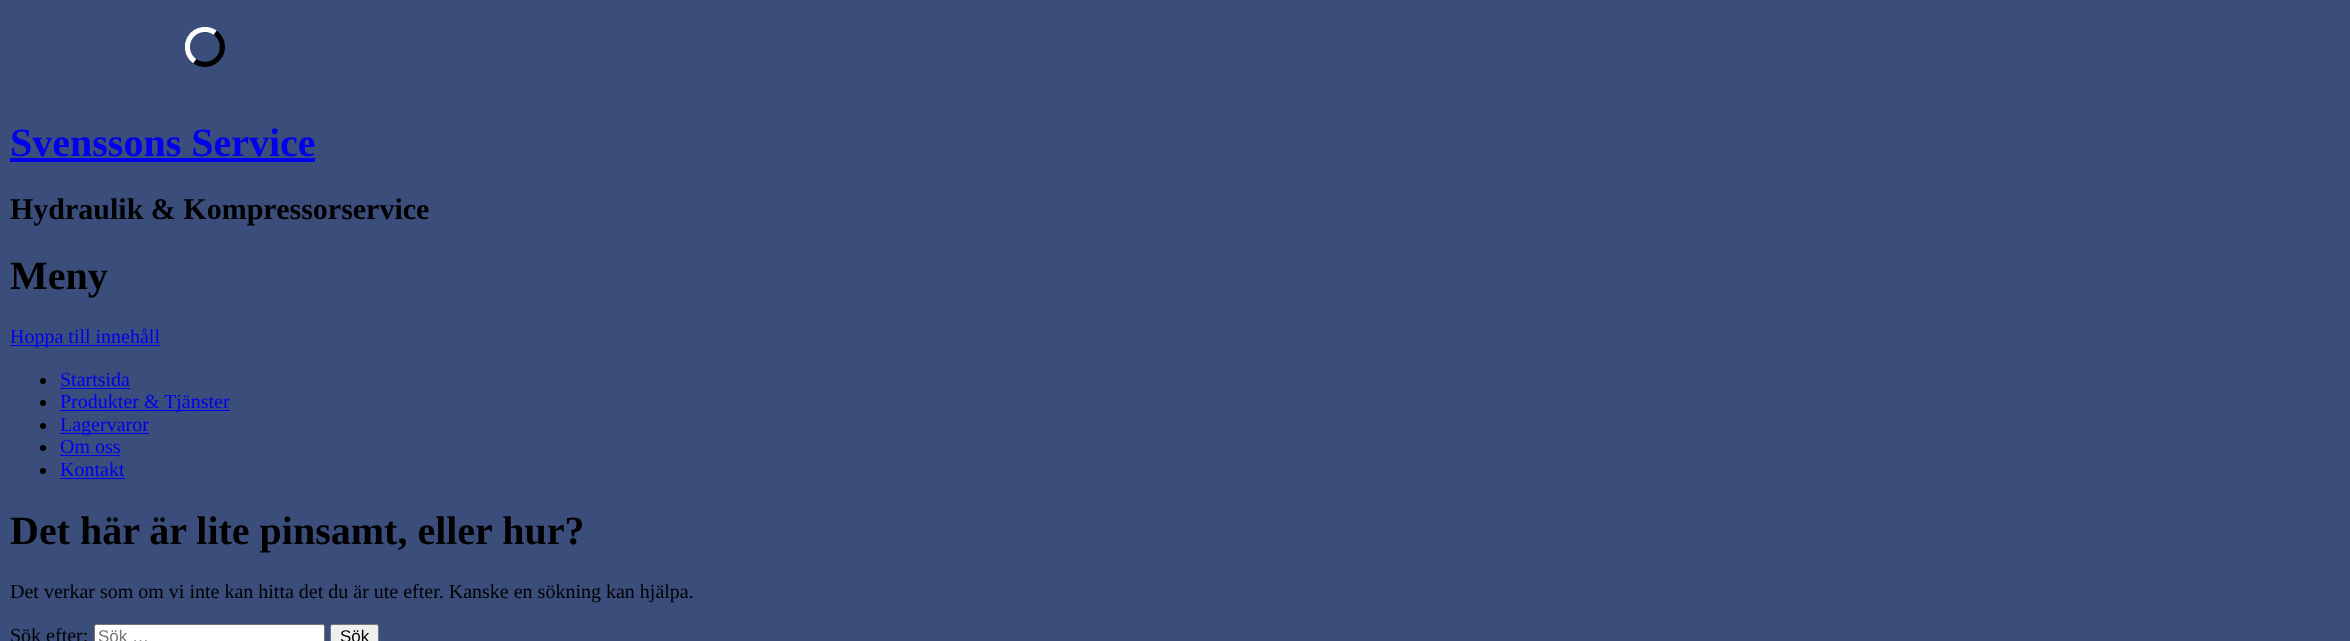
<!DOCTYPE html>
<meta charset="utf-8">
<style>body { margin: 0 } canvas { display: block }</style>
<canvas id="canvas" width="2350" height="641"></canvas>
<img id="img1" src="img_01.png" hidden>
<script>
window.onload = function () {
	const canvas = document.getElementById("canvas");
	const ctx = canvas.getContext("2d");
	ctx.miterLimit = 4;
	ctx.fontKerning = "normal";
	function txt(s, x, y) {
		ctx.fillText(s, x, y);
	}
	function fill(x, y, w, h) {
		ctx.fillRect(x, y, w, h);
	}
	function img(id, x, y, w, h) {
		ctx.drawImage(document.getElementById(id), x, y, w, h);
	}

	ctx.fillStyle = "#3A4D7B";
	fill(0, 0, 2350, 641);
	img("img1", 185, 27, 40, 40);
	ctx.fillStyle = "#0000EE";
	fill(10, 158, 305, 4);
	fill(10, 345, 150, 1);
	ctx.fillStyle = "#000000";
	ctx.beginPath();
	ctx.arc(43, 381, 3, 0, Math.PI * 2);
	ctx.fill();
	ctx.fillStyle = "#0000EE";
	fill(60, 388, 70, 1);
	ctx.fillStyle = "#000000";
	ctx.beginPath();
	ctx.arc(43, 403, 3, 0, Math.PI * 2);
	ctx.fill();
	ctx.fillStyle = "#0000EE";
	fill(60, 410, 170, 1);
	ctx.fillStyle = "#000000";
	ctx.beginPath();
	ctx.arc(43, 426, 3, 0, Math.PI * 2);
	ctx.fill();
	ctx.fillStyle = "#0000EE";
	fill(60, 433, 89, 1);
	ctx.fillStyle = "#000000";
	ctx.beginPath();
	ctx.arc(43, 448, 3, 0, Math.PI * 2);
	ctx.fill();
	ctx.fillStyle = "#0000EE";
	fill(60, 455, 60, 1);
	ctx.fillStyle = "#000000";
	ctx.beginPath();
	ctx.arc(43, 471, 3, 0, Math.PI * 2);
	ctx.fill();
	ctx.fillStyle = "#0000EE";
	fill(60, 478, 65, 1);
	ctx.fillStyle = "#FFFFFF";
	ctx.beginPath();
	ctx.roundRect(94.5, 624.5, 230, 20, 2);
	ctx.fill();
	ctx.strokeStyle = "#767676";
	ctx.stroke();
	ctx.fillStyle = "#EFEFEF";
	ctx.beginPath();
	ctx.roundRect(330.5, 624.5, 48, 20, 2);
	ctx.fill();
	ctx.stroke();
	ctx.font = "bold 40px Liberation Serif";
	ctx.fillStyle = "#0000EE";
	txt("Svenssons Service", 10, 156);
	ctx.font = "bold 30px Liberation Serif";
	ctx.fillStyle = "#000000";
	txt("Hydraulik & Kompressorservice", 10, 219);
	ctx.font = "bold 40px Liberation Serif";
	txt("Meny", 10, 289);
	ctx.font = "20px Liberation Serif";
	ctx.fillStyle = "#0000EE";
	txt("Hoppa till innehåll", 10, 343);
	txt("Startsida", 60, 386);
	txt("Produkter & Tjänster", 60, 408);
	txt("Lagervaror", 60, 431);
	txt("Om oss", 60, 453);
	txt("Kontakt", 60, 476);
	ctx.font = "bold 40px Liberation Serif";
	ctx.fillStyle = "#000000";
	txt("Det här är lite pinsamt, eller hur?", 10, 544);
	ctx.font = "20px Liberation Serif";
	txt("Det verkar som om vi inte kan hitta det du är ute efter. Kanske en sökning kan hjälpa.", 10, 598);
	txt("Sök efter:", 10, 642);
	ctx.font = "17px Liberation Sans";
	ctx.fillStyle = "#757575";
	txt("Sök …", 98, 642);
	ctx.fillStyle = "#000000";
	txt("Sök", 340, 642);
};
</script>
